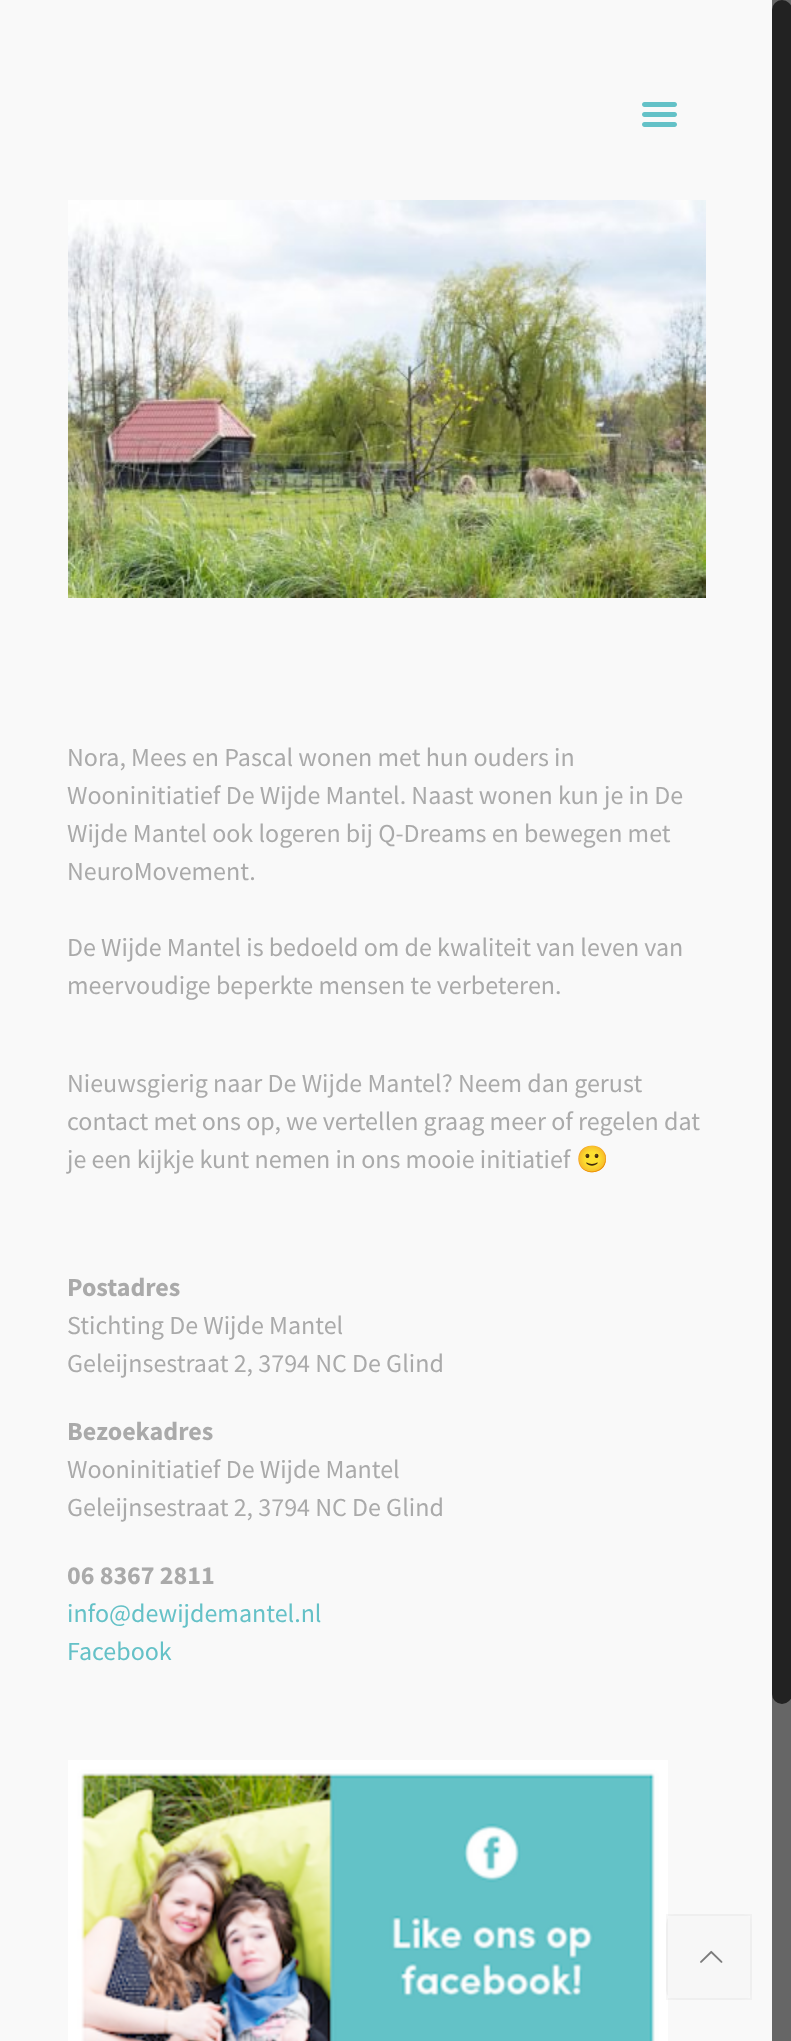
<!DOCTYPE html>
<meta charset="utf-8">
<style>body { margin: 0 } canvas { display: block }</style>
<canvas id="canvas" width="791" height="2041"></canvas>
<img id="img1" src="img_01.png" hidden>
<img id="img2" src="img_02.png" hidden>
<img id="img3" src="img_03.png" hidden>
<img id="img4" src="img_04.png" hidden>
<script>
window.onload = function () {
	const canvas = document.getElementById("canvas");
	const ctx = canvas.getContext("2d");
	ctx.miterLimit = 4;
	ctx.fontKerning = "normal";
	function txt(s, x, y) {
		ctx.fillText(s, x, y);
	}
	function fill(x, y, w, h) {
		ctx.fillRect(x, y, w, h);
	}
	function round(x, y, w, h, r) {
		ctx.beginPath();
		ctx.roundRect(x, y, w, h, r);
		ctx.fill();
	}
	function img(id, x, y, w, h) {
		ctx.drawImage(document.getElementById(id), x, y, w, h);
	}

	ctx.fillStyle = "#F9F9F9";
	fill(0, 0, 791, 2041);
	img("img1", 642, 102, 35, 25);
	img("img2", 68, 200, 638, 398);
	img("img3", 68, 1760, 600, 281);
	ctx.fillStyle = "#666666";
	fill(772, 0, 19, 2041);
	ctx.fillStyle = "#222222";
	round(772, 0, 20, 1704, 10);
	ctx.fillStyle = "#F7F7F7";
	round(666, 1914, 86, 86, 10);
	ctx.strokeStyle = "rgba(0, 0, 0, 0.03)";
	ctx.lineWidth = 2;
	ctx.strokeRect(667, 1915, 84, 84);
	img("img4", 700, 1950, 23, 13);
	ctx.font = "26px Source Sans Pro";
	ctx.fillStyle = "#AAAAAA";
	txt("Nora, Mees en Pascal wonen met hun ouders in", 67, 766);
	txt("Wooninitiatief De Wijde Mantel. Naast wonen kun je in De", 67, 804);
	txt("Wijde Mantel ook logeren bij Q-Dreams en bewegen met", 67, 842);
	txt("NeuroMovement.", 67, 880);
	txt("De Wijde Mantel is bedoeld om de kwaliteit van leven van", 67, 956);
	txt("meervoudige beperkte mensen te verbeteren.", 67, 994);
	txt("Nieuwsgierig naar De Wijde Mantel? Neem dan gerust", 67, 1092);
	txt("contact met ons op, we vertellen graag meer of regelen dat", 67, 1130);
	txt("je een kijkje kunt nemen in ons mooie initiatief", 67, 1168);
	ctx.font = "26px Noto Color Emoji";
	txt("🙂", 576, 1168);
	ctx.font = "bold 26px Source Sans Pro";
	txt("Postadres", 67, 1296);
	ctx.font = "26px Source Sans Pro";
	txt("Stichting De Wijde Mantel", 67, 1334);
	txt("Geleijnsestraat 2, 3794 NC De Glind", 67, 1372);
	ctx.font = "bold 26px Source Sans Pro";
	txt("Bezoekadres", 67, 1440);
	ctx.font = "26px Source Sans Pro";
	txt("Wooninitiatief De Wijde Mantel", 67, 1478);
	txt("Geleijnsestraat 2, 3794 NC De Glind", 67, 1516);
	ctx.font = "bold 26px Source Sans Pro";
	txt("06 8367 2811", 67, 1584);
	ctx.font = "26px Source Sans Pro";
	ctx.fillStyle = "#64C1C7";
	txt("info@dewijdemantel.nl", 67, 1622);
	txt("Facebook", 67, 1660);
};
</script>
